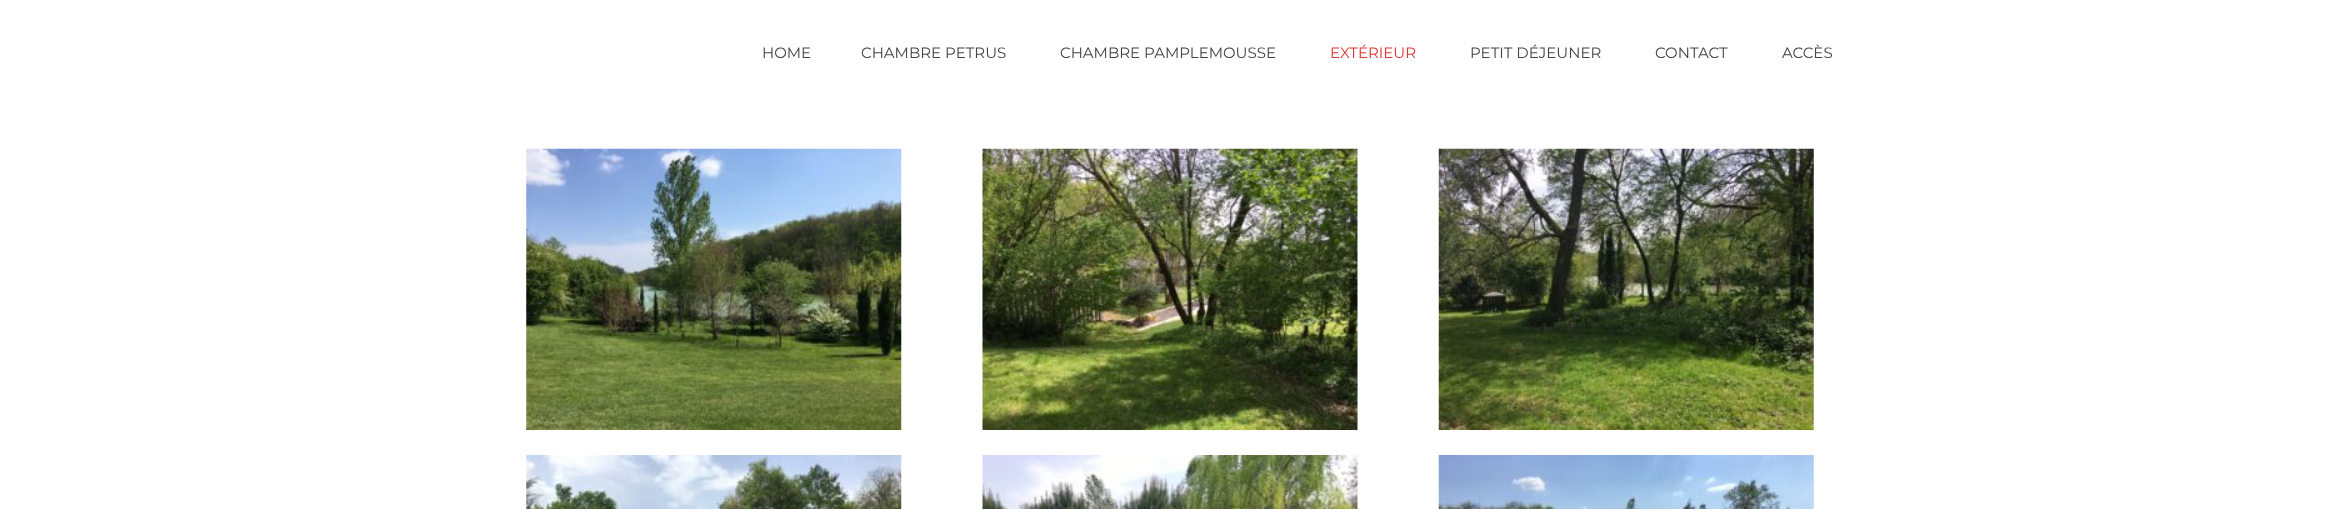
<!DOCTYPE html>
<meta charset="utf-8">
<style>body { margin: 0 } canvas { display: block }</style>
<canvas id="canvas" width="2339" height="509"></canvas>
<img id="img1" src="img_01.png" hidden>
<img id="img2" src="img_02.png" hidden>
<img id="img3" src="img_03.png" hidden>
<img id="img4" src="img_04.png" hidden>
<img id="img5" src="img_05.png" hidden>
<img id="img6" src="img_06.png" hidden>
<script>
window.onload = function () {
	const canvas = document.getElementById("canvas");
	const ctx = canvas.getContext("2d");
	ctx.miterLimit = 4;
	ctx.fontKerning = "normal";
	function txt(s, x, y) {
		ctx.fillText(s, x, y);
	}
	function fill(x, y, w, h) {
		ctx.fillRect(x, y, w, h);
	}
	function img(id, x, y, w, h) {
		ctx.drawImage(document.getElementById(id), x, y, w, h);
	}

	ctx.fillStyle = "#FFFFFF";
	fill(0, 0, 2339, 509);
	img("img1", 526, 148, 376, 282);
	img("img2", 982, 148, 376, 282);
	img("img3", 1438, 148, 376, 282);
	img("img4", 526, 455, 376, 54);
	img("img5", 982, 455, 376, 54);
	img("img6", 1438, 455, 376, 54);
	ctx.font = "15px Montserrat";
	ctx.fillStyle = "#444444";
	txt("HOME", 762, 58);
	txt("CHAMBRE PETRUS", 861, 58);
	txt("CHAMBRE PAMPLEMOUSSE", 1060, 58);
	ctx.fillStyle = "#DD3333";
	txt("EXTÉRIEUR", 1330, 58);
	ctx.fillStyle = "#444444";
	txt("PETIT DÉJEUNER", 1470, 58);
	txt("CONTACT", 1655, 58);
	txt("ACCÈS", 1782, 58);
};
</script>
